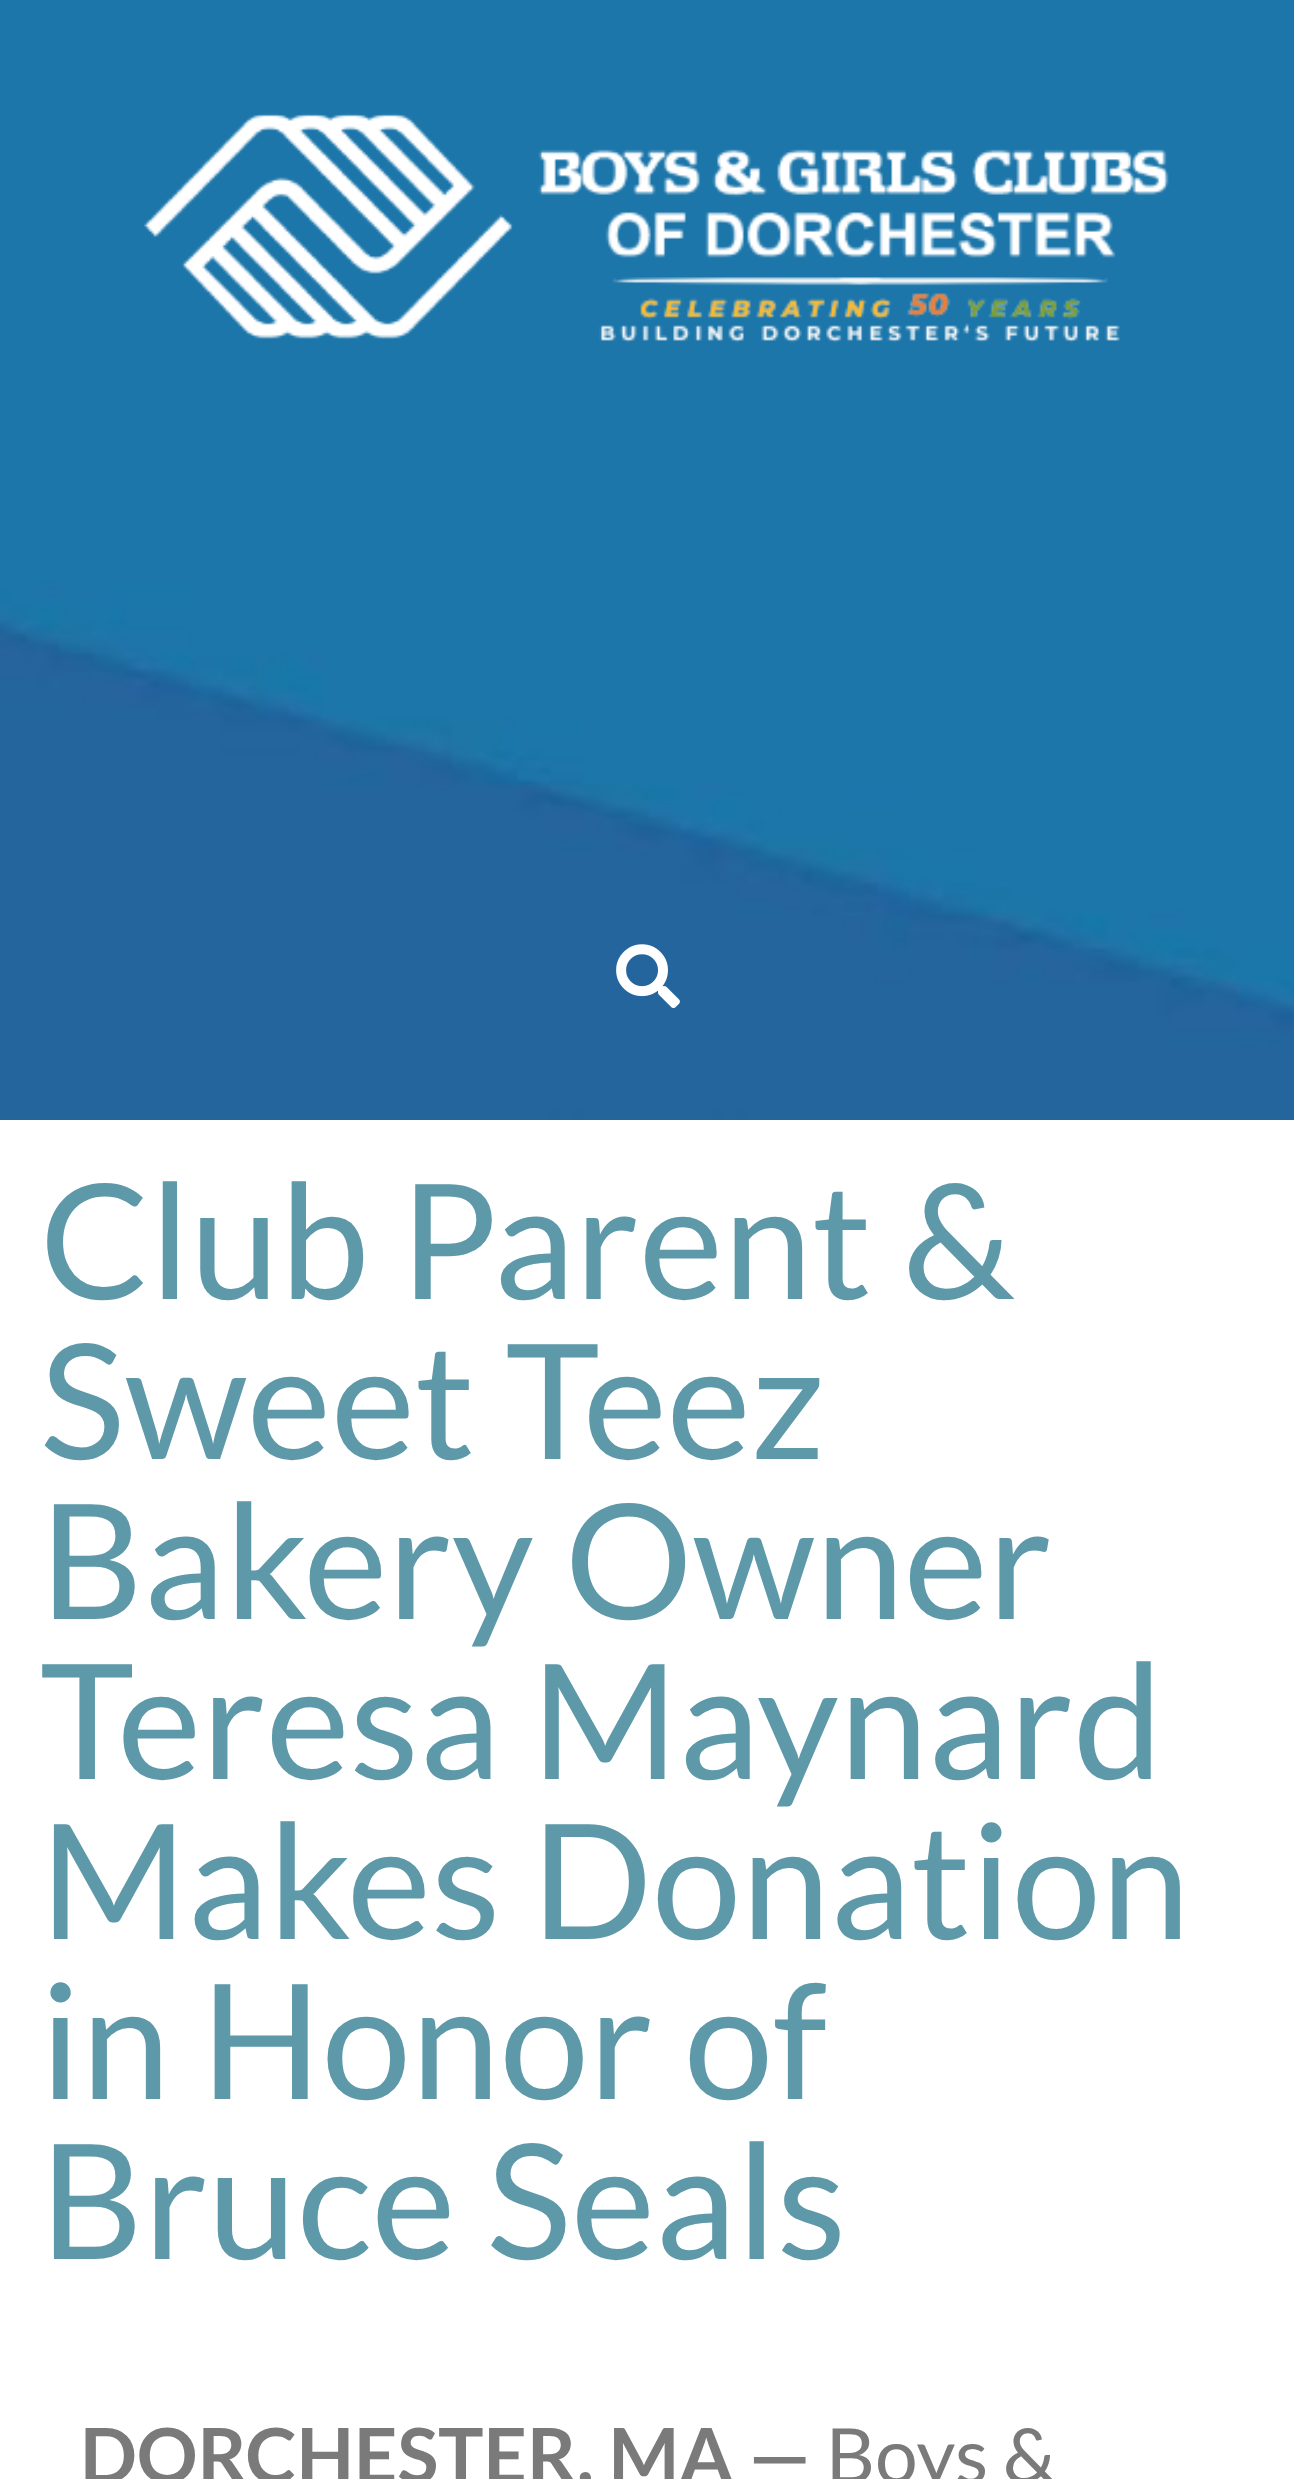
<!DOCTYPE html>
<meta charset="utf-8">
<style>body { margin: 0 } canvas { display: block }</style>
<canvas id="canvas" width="1294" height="2479"></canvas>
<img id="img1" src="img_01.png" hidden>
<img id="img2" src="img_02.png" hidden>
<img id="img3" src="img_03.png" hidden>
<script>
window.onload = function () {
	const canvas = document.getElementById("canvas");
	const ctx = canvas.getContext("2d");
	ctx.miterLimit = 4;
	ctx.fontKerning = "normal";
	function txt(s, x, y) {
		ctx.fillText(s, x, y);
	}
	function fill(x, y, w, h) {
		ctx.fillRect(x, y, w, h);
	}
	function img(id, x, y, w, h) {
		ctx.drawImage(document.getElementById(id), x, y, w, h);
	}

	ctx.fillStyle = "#FFFFFF";
	fill(0, 0, 1294, 2479);
	img("img1", 0, 0, 1294, 1120);
	img("img2", 144, 113, 1025, 230);
	img("img3", 616, 944, 64, 65);
	ctx.font = "160px Lato";
	ctx.fillStyle = "#5E99AA";
	txt("Club Parent &", 40, 1299);
	txt("Sweet Teez", 40, 1459);
	txt("Bakery Owner", 40, 1619);
	txt("Teresa Maynard", 40, 1779);
	txt("Makes Donation", 40, 1939);
	txt("in Honor of", 40, 2099);
	txt("Bruce Seals", 40, 2259);
	ctx.font = "bold 76px Lato";
	ctx.fillStyle = "#7A7A7A";
	txt("DORCHESTER, MA —", 80, 2483);
	ctx.font = "76px Lato";
	txt("Boys &", 826, 2483);
};
</script>
